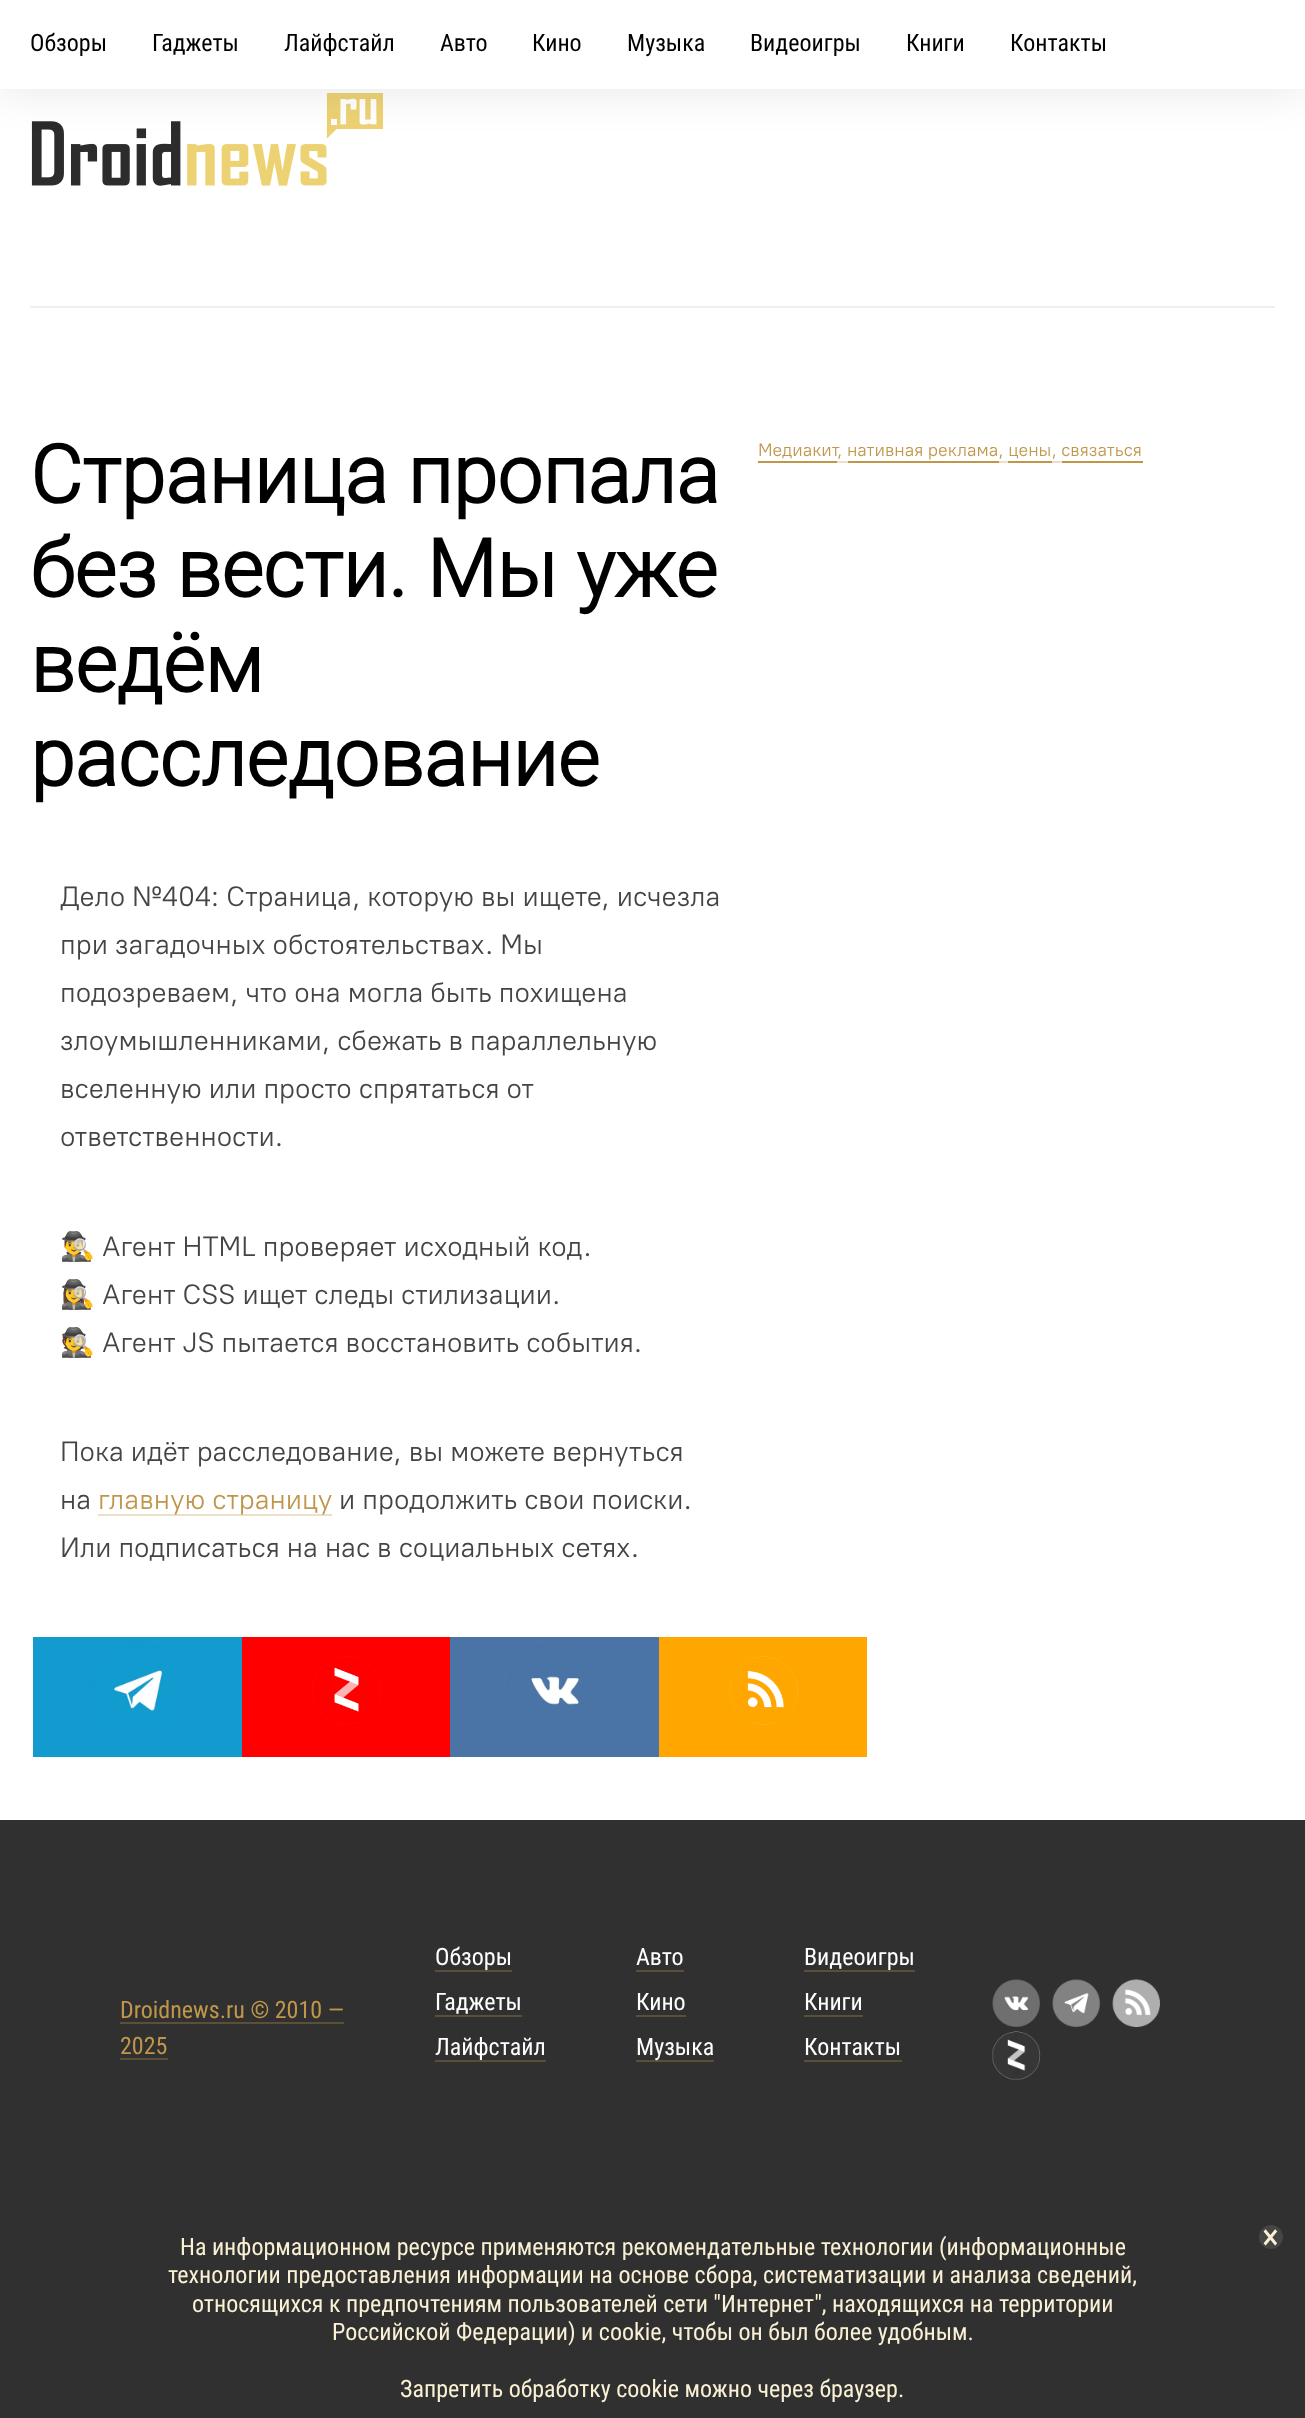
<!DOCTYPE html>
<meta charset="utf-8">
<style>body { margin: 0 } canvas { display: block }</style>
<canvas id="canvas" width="1305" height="2418"></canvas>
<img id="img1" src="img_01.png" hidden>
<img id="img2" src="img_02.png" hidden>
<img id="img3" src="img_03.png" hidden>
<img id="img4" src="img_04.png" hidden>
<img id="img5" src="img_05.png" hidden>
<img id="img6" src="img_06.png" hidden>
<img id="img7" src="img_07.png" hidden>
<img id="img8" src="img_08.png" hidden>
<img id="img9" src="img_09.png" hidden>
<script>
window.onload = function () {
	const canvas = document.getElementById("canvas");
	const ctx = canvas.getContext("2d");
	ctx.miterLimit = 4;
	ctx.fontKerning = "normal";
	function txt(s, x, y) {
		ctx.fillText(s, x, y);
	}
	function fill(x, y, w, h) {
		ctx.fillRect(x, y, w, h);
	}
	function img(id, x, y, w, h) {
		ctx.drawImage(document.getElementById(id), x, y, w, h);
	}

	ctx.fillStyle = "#FFFFFF";
	fill(0, 0, 1305, 2418);
	img("img1", 31, 93, 352, 93);
	ctx.save();
	ctx.beginPath();
	ctx.moveTo(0, 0);
	ctx.lineTo(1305, 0);
	ctx.lineTo(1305, 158);
	ctx.lineTo(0, 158);
	ctx.closePath();
	ctx.moveTo(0, 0);
	ctx.lineTo(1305, 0);
	ctx.lineTo(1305, 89);
	ctx.lineTo(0, 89);
	ctx.closePath();
	ctx.clip("evenodd");
	ctx.fillStyle = "rgba(0, 0, 0, 0.1)";
	ctx.filter = "blur(22.5px)";
	ctx.beginPath();
	ctx.rect(0, 0, 1305, 89);
	ctx.fill();
	ctx.filter = "none";
	ctx.restore();
	ctx.fillStyle = "rgba(255, 255, 255, 0.87)";
	fill(0, 88, 1305, 1);
	ctx.fillStyle = "#EFEFEF";
	fill(30, 306, 1245, 2);
	ctx.fillStyle = "#ECE0C9";
	fill(98, 1514, 234, 2);
	ctx.fillStyle = "#139BD0";
	fill(33, 1637, 209, 120);
	img("img2", 91, 1643, 95, 93);
	ctx.fillStyle = "#FF0000";
	fill(242, 1637, 208, 120);
	img("img3", 312, 1656, 69, 69);
	ctx.fillStyle = "#4A74A5";
	fill(450, 1637, 209, 120);
	img("img4", 508, 1644, 94, 93);
	ctx.fillStyle = "#FFA700";
	fill(659, 1637, 208, 120);
	img("img5", 729, 1656, 69, 69);
	ctx.fillStyle = "#C0964B";
	fill(758, 461, 79, 2);
	ctx.fillStyle = "#ECE0C9";
	fill(837, 461, 11, 2);
	ctx.fillStyle = "#C0964B";
	fill(848, 461, 151, 2);
	ctx.fillStyle = "#ECE0C9";
	fill(999, 461, 9, 2);
	ctx.fillStyle = "#C0964B";
	fill(1008, 461, 44, 2);
	ctx.fillStyle = "#ECE0C9";
	fill(1052, 461, 10, 2);
	ctx.fillStyle = "#C0964B";
	fill(1062, 461, 81, 2);
	ctx.fillStyle = "#303030";
	fill(0, 1820, 1305, 598);
	ctx.fillStyle = "#5B4F38";
	fill(120, 2022, 224, 2);
	fill(120, 2058, 48, 2);
	fill(435, 1970, 77, 2);
	fill(435, 2015, 87, 2);
	fill(435, 2060, 111, 2);
	fill(636, 1970, 48, 2);
	fill(636, 2015, 50, 2);
	fill(636, 2060, 78, 2);
	fill(804, 1970, 111, 2);
	fill(804, 2015, 59, 2);
	fill(804, 2060, 98, 2);
	img("img6", 992, 1979, 48, 48);
	img("img7", 1052, 1979, 48, 48);
	img("img8", 1112, 1979, 48, 48);
	img("img9", 991, 2031, 50, 49);
	ctx.fillStyle = "#454545";
	ctx.beginPath();
	ctx.arc(1271, 2237, 12, 0, Math.PI * 2);
	ctx.fill();
	ctx.font = "24px Roboto Condensed";
	ctx.fillStyle = "#000000";
	txt("Обзоры", 30, 51);
	txt("Гаджеты", 152, 51);
	txt("Лайфстайл", 284, 51);
	txt("Авто", 440, 51);
	txt("Кино", 532, 51);
	txt("Музыка", 627, 51);
	txt("Видеоигры", 750, 51);
	txt("Книги", 906, 51);
	txt("Контакты", 1010, 51);
	ctx.font = "bold 80.5px Roboto";
	txt("Страница пропала", 30, 503);
	txt("без вести. Мы уже", 30, 597);
	txt("ведём", 30, 692);
	txt("расследование", 30, 786);
	ctx.font = "28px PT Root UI";
	ctx.fillStyle = "#444444";
	txt("Дело №404: Страница, которую вы ищете, исчезла", 60, 906);
	txt("при загадочных обстоятельствах. Мы", 60, 954);
	txt("подозреваем, что она могла быть похищена", 60, 1002);
	txt("злоумышленниками, сбежать в параллельную", 60, 1050);
	txt("вселенную или просто спрятаться от", 60, 1098);
	txt("ответственности.", 60, 1146);
	ctx.font = "28px Noto Color Emoji";
	txt("🕵️‍♂️", 60, 1256);
	ctx.font = "28px PT Root UI";
	txt("Агент HTML проверяет исходный код.", 102, 1256);
	ctx.font = "28px Noto Color Emoji";
	txt("🕵️‍♀️", 60, 1304);
	ctx.font = "28px PT Root UI";
	txt("Агент CSS ищет следы стилизации.", 102, 1304);
	ctx.font = "28px Noto Color Emoji";
	txt("🕵️", 60, 1352);
	ctx.font = "28px PT Root UI";
	txt("Агент JS пытается восстановить события.", 102, 1352);
	txt("Пока идёт расследование, вы можете вернуться", 60, 1461);
	txt("на", 60, 1509);
	ctx.fillStyle = "#C0964B";
	txt("главную страницу", 98, 1509);
	ctx.fillStyle = "#444444";
	txt("и продолжить свои поиски.", 339, 1509);
	txt("Или подписаться на нас в социальных сетях.", 60, 1557);
	ctx.font = "18px PT Root UI";
	ctx.fillStyle = "#C0964B";
	txt("Медиакит", 758, 456);
	txt(", нативная реклама, цены, связаться", 837, 456);
	ctx.font = "24px Roboto Condensed";
	txt("Droidnews.ru © 2010 —", 120, 2018);
	txt("2025", 120, 2054);
	ctx.fillStyle = "#FFFFFF";
	txt("Обзоры", 435, 1965);
	txt("Гаджеты", 435, 2010);
	txt("Лайфстайл", 435, 2055);
	txt("Авто", 636, 1965);
	txt("Кино", 636, 2010);
	txt("Музыка", 636, 2055);
	txt("Видеоигры", 804, 1965);
	txt("Книги", 804, 2010);
	txt("Контакты", 804, 2055);
	ctx.fillStyle = "#FAF1D5";
	txt("На информационном ресурсе применяются рекомендательные технологии (информационные", 180, 2255);
	ctx.font = "36px Roboto Condensed";
	txt("×", 1262, 2249);
	ctx.font = "24px Roboto Condensed";
	txt("технологии предоставления информации на основе сбора, систематизации и анализа сведений,", 168, 2283);
	txt("относящихся к предпочтениям пользователей сети \"Интернет\", находящихся на территории", 192, 2312);
	txt("Российской Федерации) и cookie, чтобы он был более удобным.", 332, 2340);
	txt("Запретить обработку cookie можно через браузер.", 400, 2397);
};
</script>
